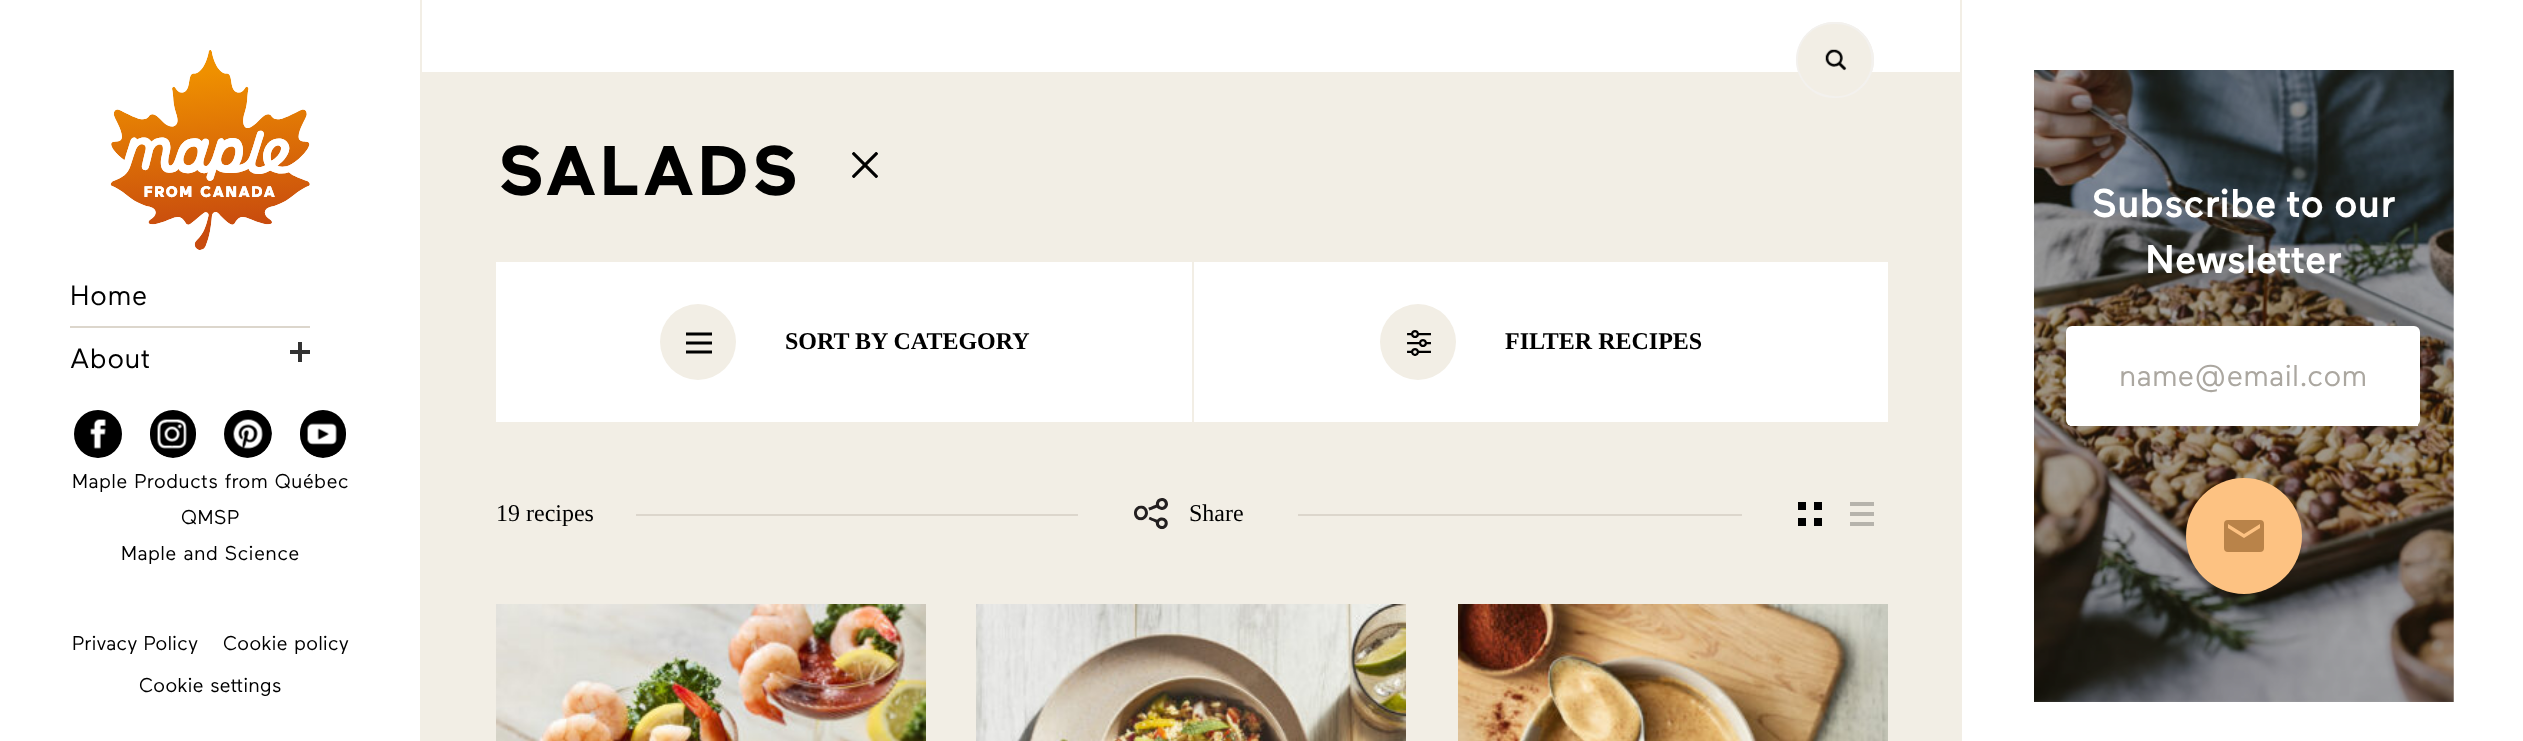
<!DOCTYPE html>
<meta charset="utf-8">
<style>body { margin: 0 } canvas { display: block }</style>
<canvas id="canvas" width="2523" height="741"></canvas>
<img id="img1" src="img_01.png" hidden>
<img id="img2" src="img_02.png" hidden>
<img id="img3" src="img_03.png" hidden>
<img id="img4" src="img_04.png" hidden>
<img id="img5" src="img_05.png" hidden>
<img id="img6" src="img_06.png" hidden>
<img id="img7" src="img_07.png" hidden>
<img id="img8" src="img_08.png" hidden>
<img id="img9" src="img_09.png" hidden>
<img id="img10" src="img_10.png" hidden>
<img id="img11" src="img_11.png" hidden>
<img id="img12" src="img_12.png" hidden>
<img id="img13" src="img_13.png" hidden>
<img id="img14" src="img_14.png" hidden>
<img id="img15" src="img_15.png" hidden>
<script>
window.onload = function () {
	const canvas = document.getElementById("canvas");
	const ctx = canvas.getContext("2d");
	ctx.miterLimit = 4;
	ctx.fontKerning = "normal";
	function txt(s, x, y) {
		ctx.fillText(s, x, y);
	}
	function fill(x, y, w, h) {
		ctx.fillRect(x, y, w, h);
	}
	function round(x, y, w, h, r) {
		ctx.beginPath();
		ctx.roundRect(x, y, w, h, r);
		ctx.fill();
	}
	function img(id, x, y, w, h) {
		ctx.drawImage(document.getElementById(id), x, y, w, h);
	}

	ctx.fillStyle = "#F2EEE5";
	fill(0, 0, 2523, 741);
	ctx.fillStyle = "#FFFFFF";
	fill(0, 0, 420, 741);
	img("img1", 110, 50, 200, 200);
	ctx.fillStyle = "#DCD6CC";
	fill(70, 326, 240, 2);
	ctx.fillStyle = "#333333";
	fill(298, 342, 4, 20);
	fill(290, 350, 20, 4);
	ctx.save();
	ctx.beginPath();
	ctx.roundRect(72, 408, 52, 50, 25);
	ctx.clip();
	ctx.fillStyle = "#000000";
	ctx.beginPath();
	ctx.arc(98, 434, 24, 0, Math.PI * 2);
	ctx.fill();
	ctx.restore();
	img("img2", 90, 419, 16, 30);
	ctx.save();
	ctx.beginPath();
	ctx.roundRect(148, 408, 50, 50, 25);
	ctx.clip();
	ctx.fillStyle = "#000000";
	round(150, 410, 46, 48, 23);
	ctx.restore();
	img("img3", 157, 419, 30, 30);
	ctx.save();
	ctx.beginPath();
	ctx.roundRect(222, 408, 50, 50, 25);
	ctx.clip();
	ctx.fillStyle = "#000000";
	ctx.beginPath();
	ctx.arc(248, 434, 24, 0, Math.PI * 2);
	ctx.fill();
	ctx.restore();
	img("img4", 233, 419, 30, 30);
	ctx.save();
	ctx.beginPath();
	ctx.roundRect(298, 408, 50, 50, 25);
	ctx.clip();
	ctx.fillStyle = "#000000";
	round(300, 410, 46, 48, 23);
	ctx.restore();
	img("img5", 307, 423, 30, 22);
	ctx.fillStyle = "#FFFFFF";
	fill(422, 0, 1538, 72);
	ctx.save();
	ctx.beginPath();
	ctx.roundRect(1796, 20, 80, 80, 40);
	ctx.clip();
	ctx.fillStyle = "#F2EEE5";
	round(1796, 22, 78, 76, 38);
	ctx.restore();
	ctx.fillStyle = "#F3F1EE";
	ctx.beginPath();
	ctx.moveTo(1834, 22);
	ctx.lineTo(1836, 22);
	ctx.bezierCurveTo(1857, 22, 1874, 39, 1874, 60);
	ctx.bezierCurveTo(1874, 81, 1857, 98, 1836, 98);
	ctx.lineTo(1834, 98);
	ctx.bezierCurveTo(1813, 98, 1796, 81, 1796, 60);
	ctx.bezierCurveTo(1796, 39, 1813, 22, 1834, 22);
	ctx.closePath();
	ctx.moveTo(1834, 24);
	ctx.bezierCurveTo(1789, 24, 1783, 92, 1834, 96);
	ctx.bezierCurveTo(1842, 97, 1850, 94, 1856, 90);
	ctx.bezierCurveTo(1885, 70, 1871, 24, 1836, 24);
	ctx.closePath();
	ctx.fill("evenodd");
	img("img6", 1825, 49, 22, 22);
	img("img7", 852, 152, 26, 26);
	ctx.fillStyle = "#FFFFFF";
	fill(496, 262, 696, 160);
	ctx.fillStyle = "#F2EEE5";
	ctx.beginPath();
	ctx.arc(698, 342, 38, 0, Math.PI * 2);
	ctx.fill();
	img("img8", 686, 332, 26, 22);
	ctx.fillStyle = "#FFFFFF";
	fill(1194, 262, 694, 160);
	ctx.fillStyle = "#F2EEE5";
	ctx.beginPath();
	ctx.arc(1418, 342, 38, 0, Math.PI * 2);
	ctx.fill();
	img("img9", 1407, 330, 24, 26);
	ctx.fillStyle = "#DCD6CC";
	fill(636, 514, 442, 2);
	img("img10", 1134, 498, 34, 32);
	fill(1298, 514, 444, 2);
	ctx.fillStyle = "#000000";
	fill(1798, 502, 8, 8);
	fill(1814, 502, 8, 8);
	fill(1798, 518, 8, 8);
	fill(1814, 518, 8, 8);
	ctx.fillStyle = "#B6B3AC";
	fill(1850, 512, 24, 4);
	fill(1850, 502, 24, 4);
	fill(1850, 522, 24, 4);
	img("img11", 496, 604, 430, 137);
	img("img12", 976, 604, 430, 137);
	img("img13", 1458, 604, 430, 137);
	ctx.fillStyle = "#FFFFFF";
	fill(1962, 0, 561, 741);
	img("img14", 2034, 70, 420, 632);
	round(2066, 326, 354, 100, 6);
	fill(2070, 424, 348, 2);
	ctx.fillStyle = "#FDC282";
	ctx.beginPath();
	ctx.arc(2244, 536, 58, 0, Math.PI * 2);
	ctx.fill();
	img("img15", 2224, 520, 40, 32);
	ctx.letterSpacing = "0.5px";
	ctx.font = "28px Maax";
	ctx.fillStyle = "#000000";
	txt("Home", 70, 305);
	txt("About", 70, 368);
	ctx.letterSpacing = "0.3px";
	ctx.font = "20px Maax";
	txt("Maple Products from Québec", 72, 488);
	txt("QMSP", 181, 524);
	txt("Maple and Science", 121, 560);
	ctx.letterSpacing = "0px";
	txt("Privacy Policy", 72, 650);
	txt("Cookie policy", 223, 650);
	txt("Cookie settings", 139, 692);
	ctx.letterSpacing = "3.5px";
	ctx.font = "bold 70px Maax";
	txt("SALADS", 498, 195);
	ctx.letterSpacing = "0px";
	ctx.font = "bold 24px Liberation Serif";
	txt("SORT BY CATEGORY", 785, 349);
	txt("FILTER RECIPES", 1505, 349);
	ctx.font = "24px Liberation Serif";
	txt("19 recipes", 496, 521);
	txt("Share", 1189, 521);
	ctx.font = "500 40px Maax";
	ctx.fillStyle = "#FFFFFF";
	txt("Subscribe to our", 2091, 217);
	txt("Newsletter", 2145, 273);
	ctx.font = "30px Maax";
	ctx.fillStyle = "#ABA7A0";
	txt("name@email.com", 2119, 386);
};
</script>
